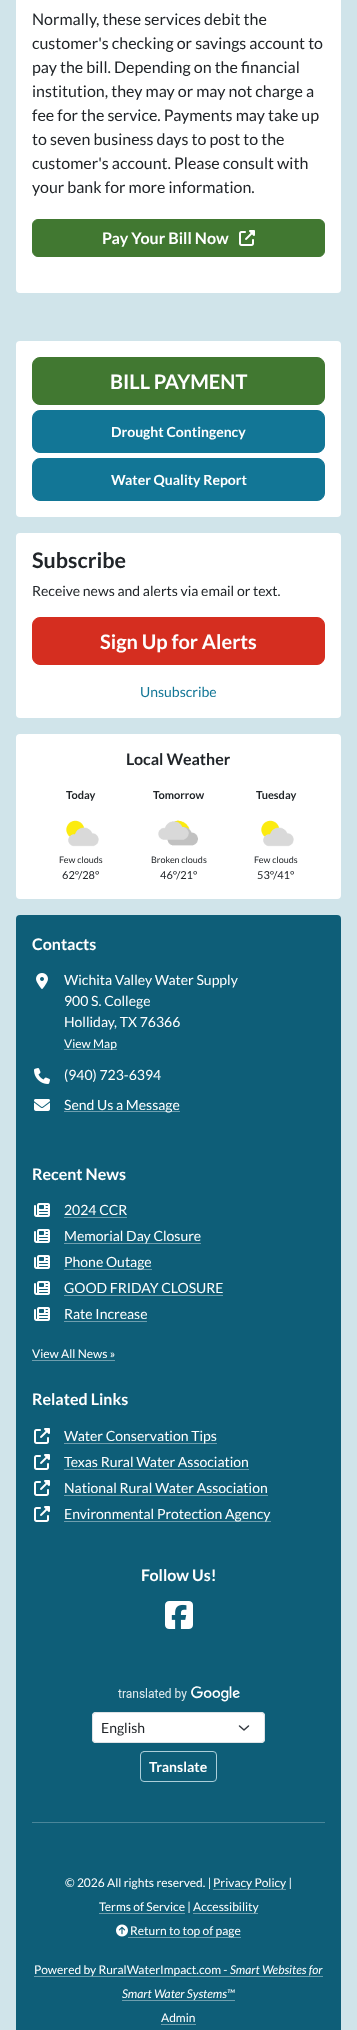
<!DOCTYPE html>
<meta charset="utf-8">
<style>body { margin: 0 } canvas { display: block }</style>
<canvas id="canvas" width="357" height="2030"></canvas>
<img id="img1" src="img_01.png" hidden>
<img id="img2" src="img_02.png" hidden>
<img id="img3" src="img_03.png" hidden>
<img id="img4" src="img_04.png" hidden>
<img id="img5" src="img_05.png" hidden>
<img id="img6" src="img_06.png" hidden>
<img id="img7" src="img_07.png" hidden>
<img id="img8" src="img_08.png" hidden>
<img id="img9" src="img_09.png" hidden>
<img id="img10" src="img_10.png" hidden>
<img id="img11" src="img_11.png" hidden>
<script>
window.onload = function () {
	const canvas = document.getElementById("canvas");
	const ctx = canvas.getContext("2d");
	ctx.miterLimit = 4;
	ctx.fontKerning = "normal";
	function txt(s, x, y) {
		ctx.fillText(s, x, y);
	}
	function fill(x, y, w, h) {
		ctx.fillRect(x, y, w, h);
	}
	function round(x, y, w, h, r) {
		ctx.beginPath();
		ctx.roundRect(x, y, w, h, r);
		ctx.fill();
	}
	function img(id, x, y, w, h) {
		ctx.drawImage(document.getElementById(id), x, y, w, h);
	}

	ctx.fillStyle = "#D0E4EA";
	fill(0, 0, 357, 2030);
	ctx.fillStyle = "#FFFFFF";
	round(16, -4, 325, 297, 4);
	ctx.fillStyle = "#417831";
	ctx.beginPath();
	ctx.roundRect(32.5, 219.5, 292, 37, 5.5);
	ctx.fill();
	ctx.strokeStyle = "#417831";
	ctx.stroke();
	img("img1", 239, 230, 16, 16);
	ctx.fillStyle = "#FFFFFF";
	round(16, 341, 325, 176, 4);
	ctx.fillStyle = "#417831";
	ctx.beginPath();
	ctx.roundRect(32.5, 357.5, 292, 47, 7.5);
	ctx.fill();
	ctx.stroke();
	ctx.fillStyle = "#127696";
	ctx.beginPath();
	ctx.roundRect(32.5, 410.5, 292, 42, 7.5);
	ctx.fill();
	ctx.strokeStyle = "#127696";
	ctx.stroke();
	ctx.beginPath();
	ctx.roundRect(32.5, 458.5, 292, 42, 7.5);
	ctx.fill();
	ctx.stroke();
	ctx.fillStyle = "#FFFFFF";
	round(16, 533, 325, 185, 4);
	ctx.fillStyle = "#D52E20";
	ctx.beginPath();
	ctx.roundRect(32.5, 617.5, 292, 47, 7.5);
	ctx.fill();
	ctx.strokeStyle = "#D52E20";
	ctx.stroke();
	ctx.fillStyle = "#FFFFFF";
	round(16, 734, 325, 165, 4);
	img("img2", 66, 820, 33, 27);
	img("img3", 158, 820, 40, 26);
	img("img2", 261, 820, 33, 27);
	ctx.fillStyle = "#0E5E78";
	round(16, 915, 325, 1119, 4);
	img("img4", 36, 973, 12, 16);
	ctx.fillStyle = "#6E9EAE";
	fill(64, 1049, 53, 1);
	img("img5", 34, 1068, 16, 16);
	img("img6", 34, 1099, 16, 12);
	fill(64, 1111, 116, 1);
	img("img7", 34, 1203, 16, 14);
	fill(64, 1217, 63, 1);
	img("img7", 34, 1229, 16, 14);
	fill(64, 1243, 137, 1);
	img("img7", 34, 1255, 16, 14);
	fill(64, 1269, 88, 1);
	img("img7", 34, 1281, 16, 14);
	fill(64, 1295, 159, 1);
	img("img7", 34, 1307, 16, 14);
	fill(64, 1321, 83, 1);
	fill(32, 1360, 83, 1);
	img("img8", 34, 1428, 16, 16);
	fill(64, 1443, 153, 1);
	img("img8", 34, 1454, 16, 16);
	fill(64, 1469, 185, 1);
	img("img8", 34, 1480, 16, 16);
	fill(64, 1495, 204, 1);
	img("img8", 34, 1506, 16, 16);
	fill(64, 1521, 207, 1);
	img("img9", 165, 1601, 28, 28);
	img("img10", 118, 1686, 122, 16);
	ctx.fillStyle = "#FFFFFF";
	round(92, 1712, 173, 31, 4);
	ctx.beginPath();
	ctx.moveTo(239.5, 1726);
	ctx.lineTo(244, 1730);
	ctx.lineTo(248.5, 1726);
	ctx.strokeStyle = "#343A40";
	ctx.lineWidth = 1.5;
	ctx.lineCap = "round";
	ctx.lineJoin = "round";
	ctx.stroke();
	ctx.beginPath();
	ctx.roundRect(92.5, 1712.5, 172, 30, 3.5);
	ctx.strokeStyle = "#DEE2E6";
	ctx.lineWidth = 1;
	ctx.lineJoin = "miter";
	ctx.stroke();
	ctx.beginPath();
	ctx.roundRect(140.5, 1751.5, 76, 30, 3.5);
	ctx.strokeStyle = "#ACCFDA";
	ctx.stroke();
	ctx.fillStyle = "#4A869A";
	fill(32, 1822, 293, 1);
	ctx.fillStyle = "#6E9EAE";
	fill(213, 1889, 73, 1);
	fill(99, 1913, 86, 1);
	fill(193, 1913, 65, 1);
	img("img11", 116, 1924, 12, 13);
	fill(128, 1937, 113, 1);
	fill(34, 1976, 289, 1);
	fill(122, 2000, 113, 1);
	fill(161, 2024, 35, 1);
	ctx.font = "16px Lato";
	ctx.fillStyle = "#212529";
	txt("Normally, these services debit the", 32, 25);
	txt("customer's checking or savings account to", 32, 49);
	txt("pay the bill. Depending on the financial", 32, 73);
	txt("institution, they may or may not charge a", 32, 97);
	txt("fee for the service. Payments may take up", 32, 121);
	txt("to seven business days to post to the", 32, 145);
	txt("customer's account. Please consult with", 32, 169);
	txt("your bank for more information.", 32, 193);
	ctx.font = "bold 16px Lato";
	ctx.fillStyle = "#FFFFFF";
	txt("Pay Your Bill Now", 102, 244);
	ctx.font = "bold 20px Lato";
	txt("BILL PAYMENT", 110, 389);
	ctx.font = "bold 14px Lato";
	txt("Drought Contingency", 111, 437);
	txt("Water Quality Report", 111, 485);
	ctx.font = "bold 21.5px Lato";
	ctx.fillStyle = "#212529";
	txt("Subscribe", 32, 568);
	ctx.font = "14px Lato";
	txt("Receive news and alerts via email or text.", 32, 596);
	ctx.font = "bold 20px Lato";
	ctx.fillStyle = "#FFFFFF";
	txt("Sign Up for Alerts", 100, 649);
	ctx.font = "14px Lato";
	ctx.fillStyle = "#127696";
	txt("Unsubscribe", 140, 697);
	ctx.font = "bold 16px Lato";
	ctx.fillStyle = "#212529";
	txt("Local Weather", 126, 765);
	ctx.font = "bold 11px Lato";
	txt("Today", 66, 799);
	txt("Tomorrow", 153, 799);
	txt("Tuesday", 256, 799);
	ctx.font = "9px Lato";
	txt("Few clouds", 59, 863);
	ctx.font = "11px Lato";
	txt("62°/28°", 62, 879);
	ctx.font = "9px Lato";
	txt("Broken clouds", 151, 863);
	ctx.font = "11px Lato";
	txt("46°/21°", 160, 879);
	ctx.font = "9px Lato";
	txt("Few clouds", 254, 863);
	ctx.font = "11px Lato";
	txt("53°/41°", 257, 879);
	ctx.font = "bold 16px Lato";
	ctx.fillStyle = "#FFFFFF";
	txt("Contacts", 32, 950);
	ctx.font = "14px Lato";
	txt("Wichita Valley Water Supply", 64, 985);
	txt("900 S. College", 64, 1006);
	txt("Holliday, TX 76366", 64, 1027);
	ctx.font = "12px Lato";
	txt("View Map", 64, 1048);
	ctx.font = "14px Lato";
	txt("(940) 723-6394", 64, 1080);
	txt("Send Us a Message", 64, 1110);
	ctx.font = "bold 16px Lato";
	txt("Recent News", 32, 1180);
	ctx.font = "14px Lato";
	txt("2024 CCR", 64, 1215);
	txt("Memorial Day Closure", 64, 1241);
	txt("Phone Outage", 64, 1267);
	txt("GOOD FRIDAY CLOSURE", 64, 1293);
	txt("Rate Increase", 64, 1319);
	ctx.font = "12px Lato";
	txt("View All News »", 32, 1358);
	ctx.font = "bold 16px Lato";
	txt("Related Links", 32, 1405);
	ctx.font = "14px Lato";
	txt("Water Conservation Tips", 64, 1441);
	txt("Texas Rural Water Association", 64, 1467);
	txt("National Rural Water Association", 64, 1493);
	txt("Environmental Protection Agency", 64, 1519);
	ctx.font = "bold 16px Lato";
	txt("Follow Us!", 141, 1581);
	ctx.font = "14px Lato";
	ctx.fillStyle = "#212529";
	txt("English", 101, 1733);
	ctx.font = "bold 14px Lato";
	ctx.fillStyle = "#FFFFFF";
	txt("Translate", 149, 1772);
	ctx.font = "12px Lato";
	txt("© 2026 All rights reserved. |", 65, 1887);
	txt("Privacy Policy |", 213, 1887);
	txt("Terms of Service |", 99, 1911);
	txt("Accessibility", 193, 1911);
	txt("Return to top of page", 130, 1935);
	txt("Powered by RuralWaterImpact.com -", 34, 1974);
	ctx.font = "italic 12px Lato";
	txt("Smart Websites for", 230, 1974);
	txt("Smart Water Systems™", 122, 1998);
	ctx.font = "12px Lato";
	txt("Admin", 161, 2022);
};
</script>
